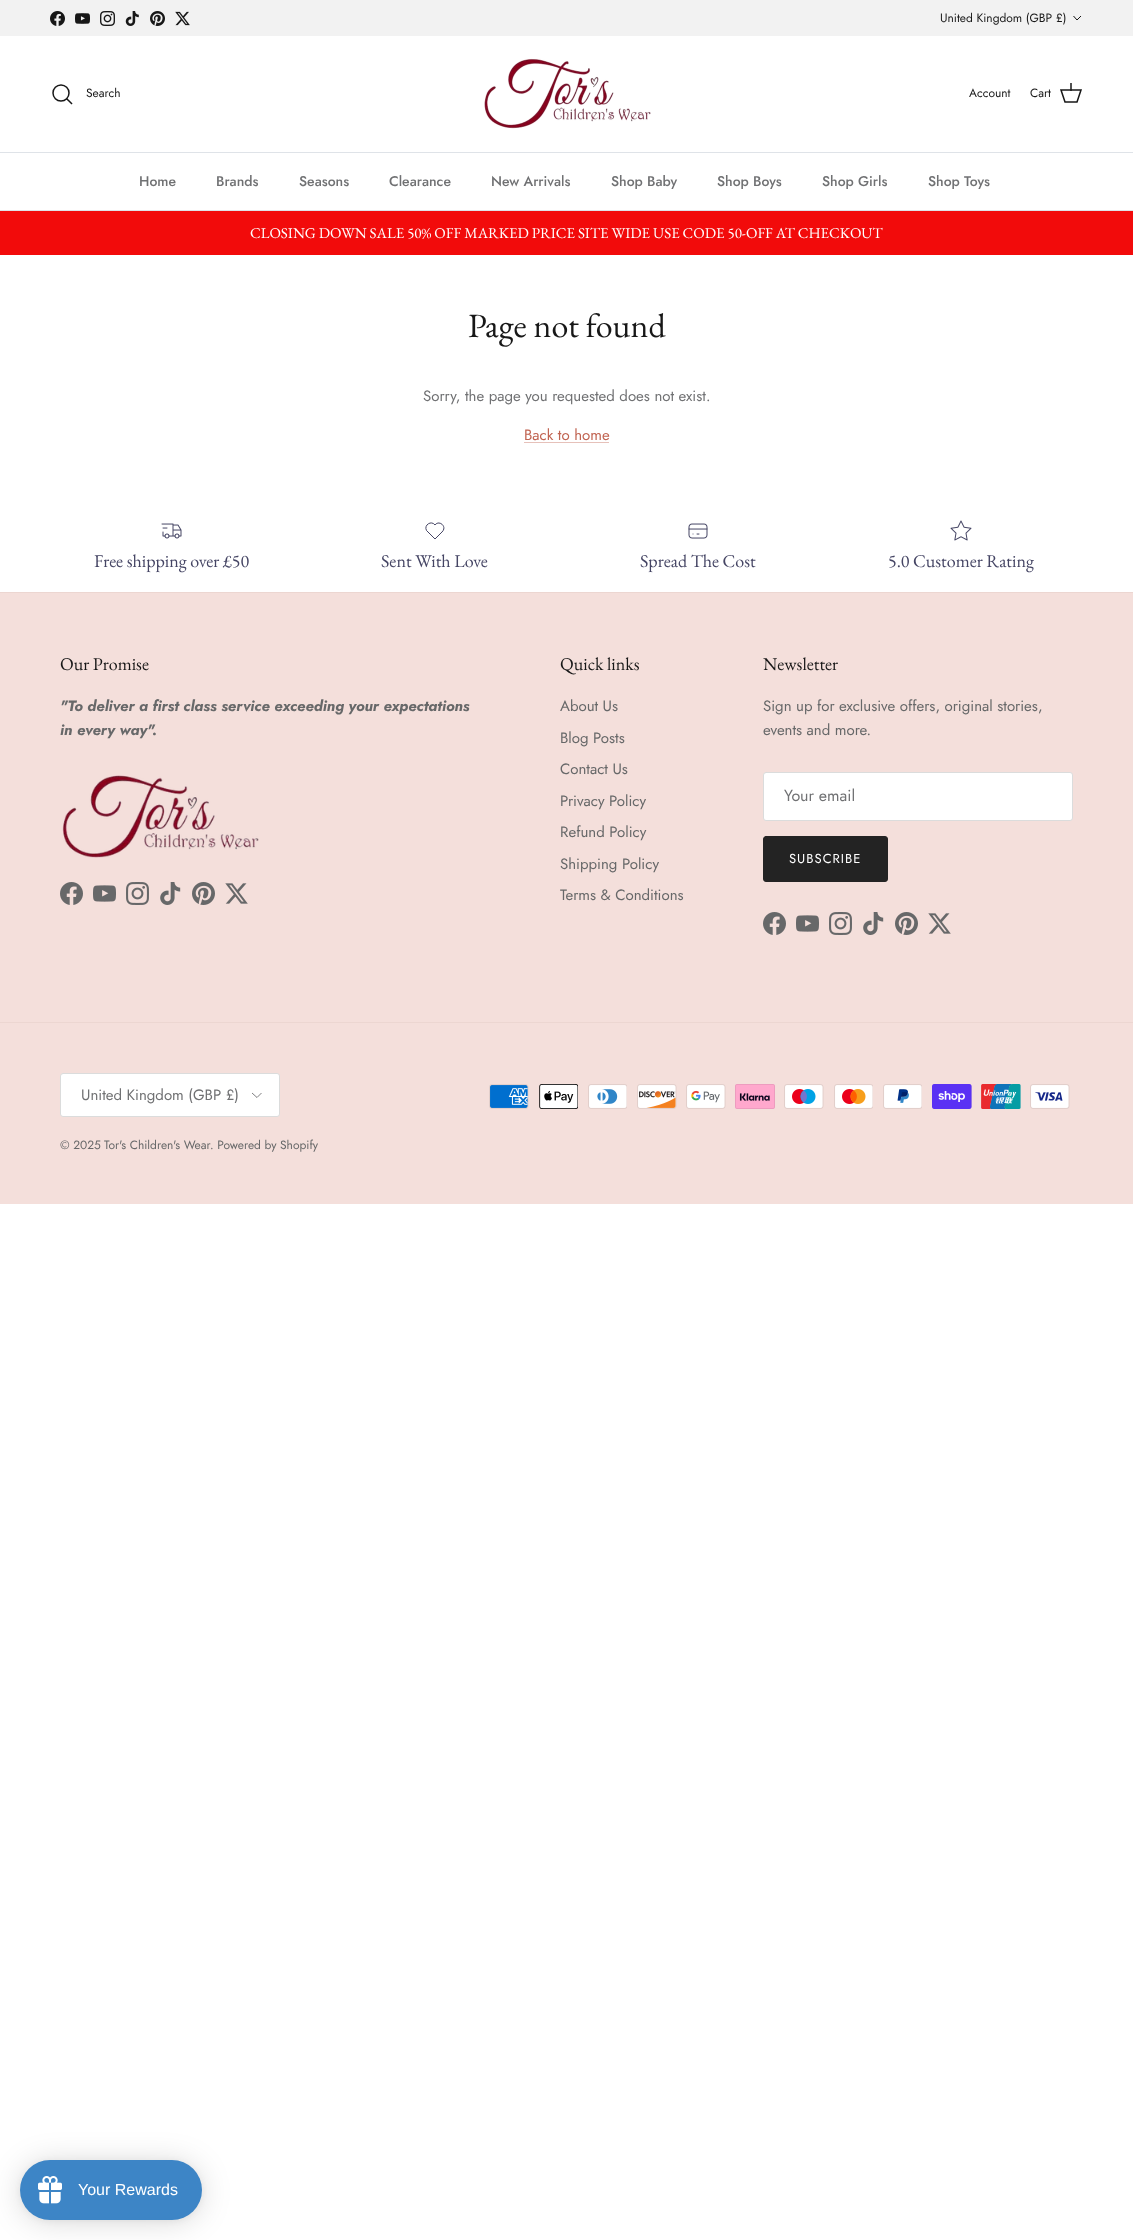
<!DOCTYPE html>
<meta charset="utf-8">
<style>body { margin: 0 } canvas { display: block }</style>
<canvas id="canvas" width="1133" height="2240"></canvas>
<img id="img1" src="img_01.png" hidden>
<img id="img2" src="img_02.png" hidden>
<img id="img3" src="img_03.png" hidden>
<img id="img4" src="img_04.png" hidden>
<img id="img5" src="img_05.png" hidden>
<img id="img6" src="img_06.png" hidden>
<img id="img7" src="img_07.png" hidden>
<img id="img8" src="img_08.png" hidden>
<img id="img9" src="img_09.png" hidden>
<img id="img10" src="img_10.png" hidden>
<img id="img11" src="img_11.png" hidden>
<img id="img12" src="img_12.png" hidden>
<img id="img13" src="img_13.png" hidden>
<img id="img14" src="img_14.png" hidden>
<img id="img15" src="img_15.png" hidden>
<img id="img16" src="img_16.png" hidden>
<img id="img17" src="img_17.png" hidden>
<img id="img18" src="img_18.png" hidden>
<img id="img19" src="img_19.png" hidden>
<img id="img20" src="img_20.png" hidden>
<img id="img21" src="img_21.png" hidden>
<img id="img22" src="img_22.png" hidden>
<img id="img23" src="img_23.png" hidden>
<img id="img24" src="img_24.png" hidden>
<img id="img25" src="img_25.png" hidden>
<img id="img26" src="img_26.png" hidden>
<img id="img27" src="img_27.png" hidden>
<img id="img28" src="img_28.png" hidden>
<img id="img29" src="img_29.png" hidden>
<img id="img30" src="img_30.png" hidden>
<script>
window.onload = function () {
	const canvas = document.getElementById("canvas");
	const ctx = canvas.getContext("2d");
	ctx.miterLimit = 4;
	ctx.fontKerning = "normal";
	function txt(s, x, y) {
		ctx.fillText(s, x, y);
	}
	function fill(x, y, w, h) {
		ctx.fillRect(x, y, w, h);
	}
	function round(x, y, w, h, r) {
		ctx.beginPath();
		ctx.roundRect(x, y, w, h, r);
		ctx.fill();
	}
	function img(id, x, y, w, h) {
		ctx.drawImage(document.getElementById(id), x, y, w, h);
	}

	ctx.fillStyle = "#FFFFFF";
	fill(0, 0, 1133, 2240);
	ctx.fillStyle = "#F2F2F2";
	fill(0, 0, 1133, 36);
	img("img1", 50, 11, 15, 15);
	img("img2", 75, 13, 15, 11);
	img("img3", 100, 11, 15, 15);
	img("img4", 125, 11, 14, 15);
	img("img5", 150, 11, 15, 15);
	img("img6", 175, 11, 15, 15);
	ctx.beginPath();
	ctx.moveTo(1081, 16);
	ctx.lineTo(1077, 20);
	ctx.lineTo(1073.5, 16);
	ctx.strokeStyle = "#171717";
	ctx.stroke();
	ctx.fillStyle = "#DFE3E8";
	fill(0, 152, 1133, 1);
	ctx.beginPath();
	ctx.arc(61, 93, 8, 0, Math.PI * 2);
	ctx.lineWidth = 1.5;
	ctx.stroke();
	ctx.beginPath();
	ctx.moveTo(67, 99);
	ctx.lineTo(71.5, 103.5);
	ctx.lineCap = "square";
	ctx.stroke();
	img("img7", 484, 58, 167, 71);
	ctx.beginPath();
	ctx.moveTo(1061, 90);
	ctx.lineTo(1081, 90);
	ctx.lineTo(1077, 102);
	ctx.lineTo(1065, 102);
	ctx.closePath();
	ctx.lineCap = "butt";
	ctx.stroke();
	ctx.fillStyle = "rgba(23, 23, 23, 0.75)";
	fill(1070, 83, 2, 8);
	ctx.fillStyle = "#DFE3E8";
	fill(0, 210, 1133, 1);
	ctx.fillStyle = "#F20B0B";
	fill(0, 211, 1133, 44);
	ctx.fillStyle = "#E6C1BA";
	fill(524, 442, 85, 1);
	img("img8", 161, 523, 21, 16);
	ctx.beginPath();
	ctx.moveTo(442.5, 531.5);
	ctx.lineTo(435, 539);
	ctx.lineTo(426.5, 530.5);
	ctx.bezierCurveTo(423.5, 525, 431.5, 520, 435, 525);
	ctx.bezierCurveTo(439, 519.5, 447.5, 526.5, 442.5, 531.5);
	ctx.strokeStyle = "#454564";
	ctx.lineWidth = 1;
	ctx.lineCap = "round";
	ctx.lineJoin = "round";
	ctx.stroke();
	img("img9", 688, 523, 20, 16);
	img("img10", 950, 520, 22, 21);
	ctx.fillStyle = "#F4DFDB";
	fill(0, 593, 1133, 611);
	ctx.fillStyle = "#ECD6D1";
	fill(0, 592, 1133, 1);
	img("img11", 62, 775, 197, 83);
	img("img12", 60, 882, 23, 23);
	img("img13", 93, 885, 23, 17);
	img("img14", 126, 882, 23, 23);
	img("img15", 160, 882, 21, 23);
	img("img16", 192, 882, 23, 23);
	img("img17", 225, 883, 23, 21);
	ctx.fillStyle = "#FFFFFF";
	ctx.beginPath();
	ctx.roundRect(763.5, 772.5, 309, 48, 2.5);
	ctx.fill();
	ctx.strokeStyle = "#DBDCDC";
	ctx.lineJoin = "miter";
	ctx.stroke();
	ctx.fillStyle = "#232323";
	ctx.beginPath();
	ctx.roundRect(763.5, 836.5, 124, 45, 2.5);
	ctx.fill();
	ctx.strokeStyle = "#232323";
	ctx.stroke();
	img("img12", 763, 912, 23, 23);
	img("img13", 796, 915, 23, 17);
	img("img14", 829, 912, 23, 23);
	img("img15", 863, 912, 21, 23);
	img("img16", 895, 912, 23, 23);
	img("img17", 928, 913, 23, 21);
	ctx.fillStyle = "#ECD6D1";
	fill(0, 1022, 1133, 1);
	ctx.fillStyle = "#FFFFFF";
	ctx.beginPath();
	ctx.roundRect(60.5, 1073.5, 219, 43, 2.5);
	ctx.fill();
	ctx.strokeStyle = "#DBDCDC";
	ctx.stroke();
	ctx.beginPath();
	ctx.moveTo(261.5, 1093);
	ctx.lineTo(257, 1097.5);
	ctx.lineTo(252, 1093);
	ctx.strokeStyle = "#707173";
	ctx.lineWidth = 0.9;
	ctx.lineCap = "butt";
	ctx.stroke();
	img("img18", 489, 1084, 40, 25);
	img("img19", 539, 1084, 39, 25);
	img("img20", 588, 1084, 39, 25);
	img("img21", 637, 1084, 40, 25);
	img("img22", 686, 1084, 40, 25);
	img("img23", 735, 1084, 40, 25);
	img("img24", 784, 1084, 40, 25);
	img("img25", 834, 1084, 39, 25);
	img("img26", 883, 1084, 39, 25);
	img("img27", 932, 1084, 40, 25);
	img("img28", 981, 1084, 40, 25);
	img("img29", 1030, 1084, 40, 25);
	ctx.fillStyle = "rgba(0, 0, 0, 0.15)";
	ctx.filter = "blur(15px)";
	ctx.beginPath();
	ctx.roundRect(20, 2162, 182, 60, 30);
	ctx.fill();
	ctx.filter = "none";
	ctx.fillStyle = "rgba(0, 0, 0, 0.05)";
	ctx.filter = "blur(3px)";
	ctx.beginPath();
	ctx.roundRect(20, 2161, 182, 60, 30);
	ctx.fill();
	ctx.filter = "none";
	ctx.fillStyle = "#3D85C6";
	round(20, 2160, 182, 60, 30);
	img("img30", 38, 2176, 24, 28);
	ctx.font = "12px Jost";
	ctx.fillStyle = "#171717";
	txt("United Kingdom (GBP £)", 940, 22);
	txt("Search", 86, 97);
	txt("Account", 969, 97);
	txt("Cart", 1030, 97);
	ctx.font = "500 14px Jost";
	ctx.fillStyle = "#707173";
	txt("Home", 139, 186);
	txt("Brands", 216, 186);
	txt("Seasons", 299, 186);
	txt("Clearance", 389, 186);
	txt("New Arrivals", 491, 186);
	txt("Shop Baby", 611, 186);
	txt("Shop Boys", 717, 186);
	txt("Shop Girls", 822, 186);
	txt("Shop Toys", 928, 186);
	ctx.font = "15px EB Garamond";
	ctx.fillStyle = "#FFFFFF";
	txt("CLOSING DOWN SALE 50% OFF MARKED PRICE SITE WIDE USE CODE 50-OFF AT CHECKOUT", 250, 238);
	ctx.font = "34px EB Garamond";
	ctx.fillStyle = "#171717";
	txt("Page not found", 468, 337);
	ctx.font = "15px Jost";
	ctx.fillStyle = "#707173";
	txt("Sorry, the page you requested does not exist.", 423, 401);
	ctx.fillStyle = "#C16452";
	txt("Back to home", 524, 440);
	ctx.font = "18px EB Garamond";
	ctx.fillStyle = "#454564";
	txt("Free shipping over £50", 94, 567);
	txt("Sent With Love", 381, 567);
	txt("Spread The Cost", 640, 567);
	txt("5.0 Customer Rating", 888, 567);
	ctx.fillStyle = "#171717";
	txt("Our Promise", 60, 670);
	ctx.font = "italic bold 15px Jost";
	ctx.fillStyle = "#676869";
	txt("\"To deliver a first class service exceeding your expectations", 60, 711);
	txt("in every way\".", 60, 735);
	ctx.font = "18px EB Garamond";
	ctx.fillStyle = "#171717";
	txt("Quick links", 560, 670);
	ctx.font = "15px Jost";
	ctx.fillStyle = "#676869";
	txt("About Us", 560, 711);
	txt("Blog Posts", 560, 743);
	txt("Contact Us", 560, 774);
	txt("Privacy Policy", 560, 806);
	txt("Refund Policy", 560, 837);
	txt("Shipping Policy", 560, 869);
	txt("Terms & Conditions", 560, 900);
	ctx.font = "18px EB Garamond";
	ctx.fillStyle = "#171717";
	txt("Newsletter", 763, 670);
	ctx.font = "15px Jost";
	ctx.fillStyle = "#676869";
	txt("Sign up for exclusive offers, original stories,", 763, 711);
	txt("events and more.", 763, 735);
	ctx.font = "16px Jost";
	ctx.fillStyle = "#707173";
	txt("Your email", 784, 801);
	ctx.letterSpacing = "1px";
	ctx.font = "13px Jost";
	ctx.fillStyle = "#FFFFFF";
	txt("SUBSCRIBE", 789, 863);
	ctx.letterSpacing = "0px";
	ctx.font = "15px Jost";
	ctx.fillStyle = "#707173";
	txt("United Kingdom (GBP £)", 81, 1100);
	ctx.font = "12px Jost";
	ctx.fillStyle = "#676869";
	txt("© 2025", 60, 1149);
	txt("Tor's Children's Wear", 104, 1149);
	txt(". Powered by Shopify", 210, 1149);
	ctx.font = "16px Liberation Sans";
	ctx.fillStyle = "#FFFFFF";
	txt("Your Rewards", 78, 2195);
};
</script>
